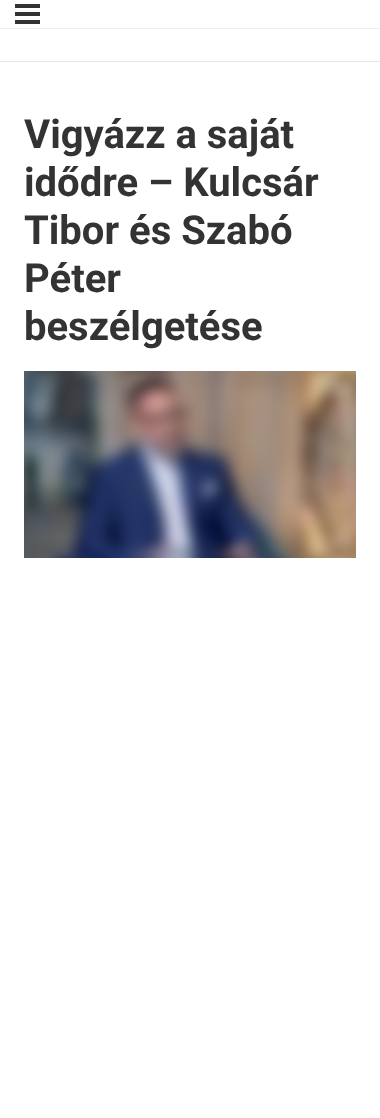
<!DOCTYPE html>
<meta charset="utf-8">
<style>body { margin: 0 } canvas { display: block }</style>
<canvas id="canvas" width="380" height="1118"></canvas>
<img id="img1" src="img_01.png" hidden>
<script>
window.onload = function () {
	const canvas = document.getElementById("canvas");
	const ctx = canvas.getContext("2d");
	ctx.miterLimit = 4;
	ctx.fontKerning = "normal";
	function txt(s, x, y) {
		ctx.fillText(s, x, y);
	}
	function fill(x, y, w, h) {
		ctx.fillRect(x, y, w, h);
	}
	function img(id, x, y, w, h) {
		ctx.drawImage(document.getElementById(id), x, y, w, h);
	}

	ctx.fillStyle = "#FFFFFF";
	fill(0, 0, 380, 1118);
	ctx.fillStyle = "#E2E7ED";
	fill(0, 61, 380, 1);
	ctx.fillStyle = "#333333";
	fill(15, 4, 25, 4);
	fill(15, 12, 25, 4);
	fill(15, 20, 25, 4);
	ctx.fillStyle = "#EFEFEF";
	fill(0, 28, 380, 1);
	img("img1", 24, 371, 332, 187);
	ctx.font = "bold 40px Roboto";
	ctx.fillStyle = "#333333";
	txt("Vigyázz a saját", 24, 148);
	txt("idődre – Kulcsár", 24, 196);
	txt("Tibor és Szabó", 24, 244);
	txt("Péter", 24, 292);
	txt("beszélgetése", 24, 340);
};
</script>
